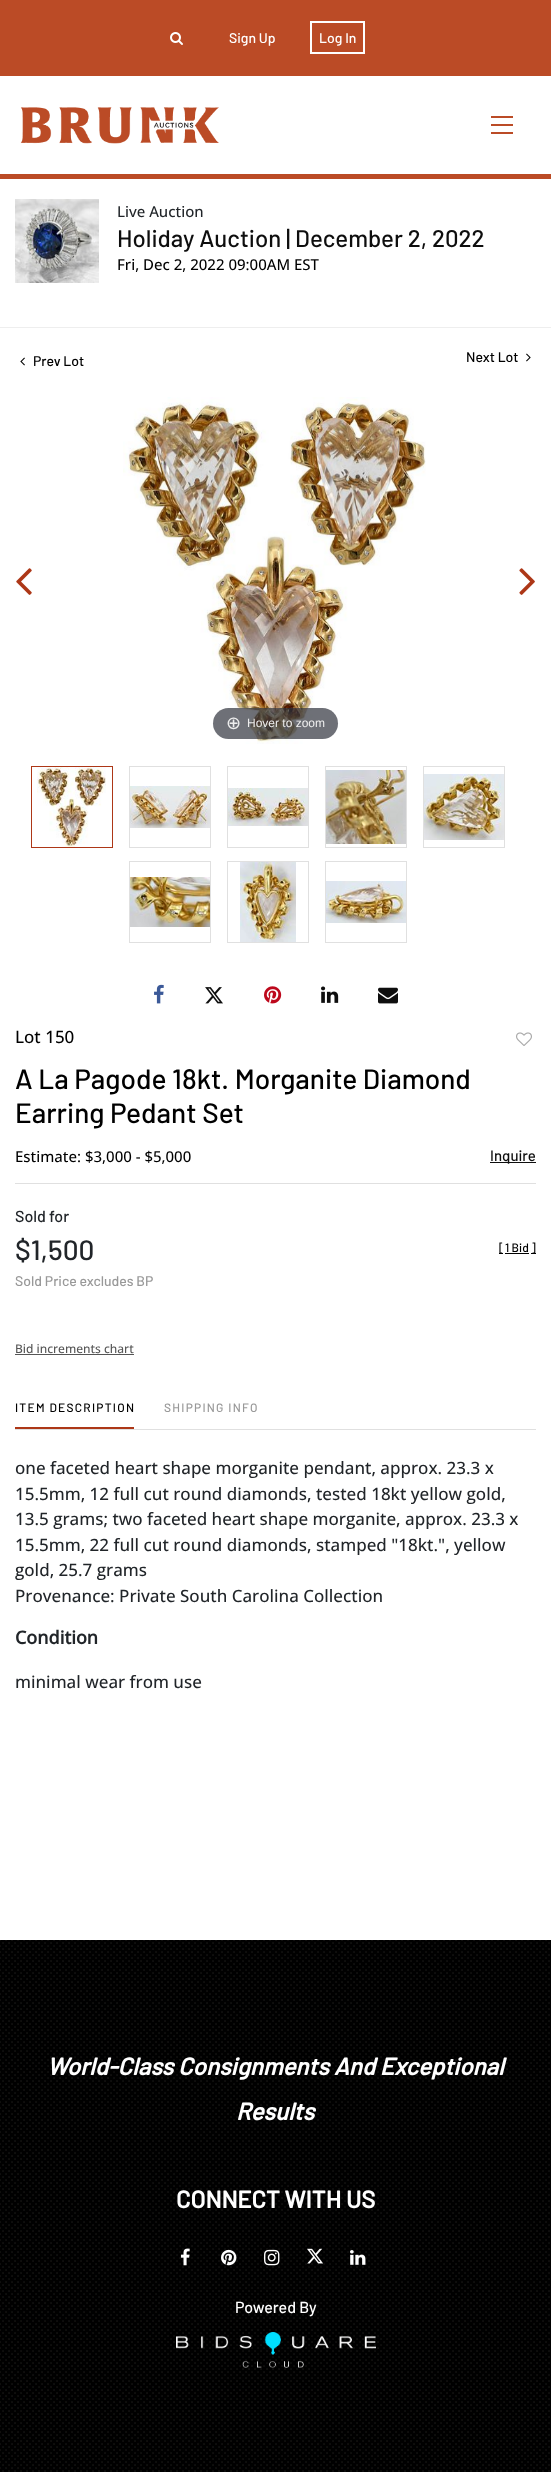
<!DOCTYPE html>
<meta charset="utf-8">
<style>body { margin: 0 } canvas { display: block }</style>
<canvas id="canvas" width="551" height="2472"></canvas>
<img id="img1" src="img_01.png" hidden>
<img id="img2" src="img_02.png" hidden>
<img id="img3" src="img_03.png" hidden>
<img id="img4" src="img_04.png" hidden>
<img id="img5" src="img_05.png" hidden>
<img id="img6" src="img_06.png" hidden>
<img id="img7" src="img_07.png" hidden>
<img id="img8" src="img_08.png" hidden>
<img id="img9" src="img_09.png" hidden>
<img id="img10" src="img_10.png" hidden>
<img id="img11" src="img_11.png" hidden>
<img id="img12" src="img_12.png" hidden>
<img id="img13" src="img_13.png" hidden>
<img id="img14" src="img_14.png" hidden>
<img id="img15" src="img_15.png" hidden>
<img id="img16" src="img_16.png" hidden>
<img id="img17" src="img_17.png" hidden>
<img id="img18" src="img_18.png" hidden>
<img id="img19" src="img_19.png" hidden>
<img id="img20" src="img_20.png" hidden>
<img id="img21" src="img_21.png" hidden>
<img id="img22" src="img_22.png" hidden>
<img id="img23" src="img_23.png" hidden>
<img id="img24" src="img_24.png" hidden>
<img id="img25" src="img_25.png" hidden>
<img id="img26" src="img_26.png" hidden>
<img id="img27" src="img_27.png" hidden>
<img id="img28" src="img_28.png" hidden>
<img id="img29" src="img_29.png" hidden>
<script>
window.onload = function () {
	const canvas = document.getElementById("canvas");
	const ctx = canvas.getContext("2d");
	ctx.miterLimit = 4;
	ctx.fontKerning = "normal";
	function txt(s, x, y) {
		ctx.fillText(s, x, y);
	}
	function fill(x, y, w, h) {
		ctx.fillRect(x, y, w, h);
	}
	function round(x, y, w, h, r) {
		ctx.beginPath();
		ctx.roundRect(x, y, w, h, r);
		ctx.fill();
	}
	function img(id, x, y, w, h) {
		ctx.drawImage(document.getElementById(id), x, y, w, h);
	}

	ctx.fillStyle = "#FFFFFF";
	fill(0, 0, 551, 2472);
	ctx.fillStyle = "#BB4B26";
	fill(0, 0, 551, 76);
	img("img1", 170, 32, 13, 13);
	ctx.strokeStyle = "#FFFFFF";
	ctx.lineWidth = 2;
	ctx.strokeRect(311, 22, 53, 31);
	fill(0, 174, 551, 5);
	img("img2", 20, 107, 199, 37);
	fill(491, 116, 22, 2);
	fill(491, 124, 22, 2);
	fill(491, 132, 22, 2);
	img("img3", 15, 199, 84, 84);
	ctx.fillStyle = "#EEEEEE";
	fill(0, 327, 551, 1);
	img("img4", 20, 357, 5, 9);
	img("img5", 526, 353, 5, 9);
	img("img6", 16, 568, 16, 27);
	img("img7", 519, 568, 16, 27);
	img("img8", 123, 397, 303, 347);
	ctx.fillStyle = "rgba(49, 51, 61, 0.7)";
	round(213, 708, 125, 31, 15.5);
	img("img9", 37, 767, 69, 80);
	ctx.strokeStyle = "#AD3717";
	ctx.lineWidth = 1;
	ctx.strokeRect(31.5, 766.5, 81, 81);
	img("img10", 130, 786, 80, 42);
	ctx.strokeStyle = "#E0E0E0";
	ctx.strokeRect(129.5, 766.5, 81, 81);
	img("img11", 228, 788, 80, 38);
	ctx.strokeRect(227.5, 766.5, 81, 81);
	img("img12", 326, 770, 80, 74);
	ctx.strokeRect(325.5, 766.5, 81, 81);
	img("img13", 424, 774, 80, 66);
	ctx.strokeRect(423.5, 766.5, 81, 81);
	img("img14", 130, 877, 80, 50);
	ctx.strokeRect(129.5, 861.5, 81, 81);
	img("img15", 240, 862, 56, 80);
	ctx.strokeRect(227.5, 861.5, 81, 81);
	img("img16", 326, 881, 80, 42);
	ctx.strokeRect(325.5, 861.5, 81, 81);
	img("img17", 154, 984, 10, 20);
	img("img18", 205, 987, 18, 17);
	img("img19", 264, 986, 18, 18);
	img("img20", 321, 986, 18, 17);
	img("img21", 378, 987, 20, 17);
	img("img22", 516, 1032, 16, 14);
	ctx.fillStyle = "#E0E0E0";
	fill(15, 1183, 521, 1);
	ctx.fillStyle = "#0E0E0E";
	fill(490, 1162, 46, 1);
	ctx.fillStyle = "#000000";
	fill(499, 1253, 4, 1);
	fill(505, 1253, 24, 1);
	fill(531, 1253, 5, 1);
	ctx.fillStyle = "#555555";
	fill(15, 1354, 119, 1);
	ctx.fillStyle = "#E0E0E0";
	fill(15, 1429, 521, 1);
	ctx.fillStyle = "#AD3717";
	fill(15, 1427, 119, 2);
	ctx.fillStyle = "#000000";
	fill(0, 1940, 551, 532);
	img("img23", 0, 1940, 550, 532);
	img("img24", 180, 2248, 10, 18);
	img("img25", 221, 2249, 16, 17);
	img("img26", 264, 2249, 16, 17);
	img("img27", 307, 2248, 16, 16);
	img("img28", 350, 2250, 16, 15);
	img("img29", 176, 2332, 200, 36);
	ctx.font = "500 14px Barlow";
	ctx.fillStyle = "#FFFFFF";
	txt("Sign Up", 229, 43);
	txt("Log In", 319, 43);
	ctx.font = "500 15px Open Sans";
	ctx.fillStyle = "#212529";
	txt("Live Auction", 117, 217);
	ctx.font = "500 24px Barlow";
	ctx.fillStyle = "#0E0E0E";
	txt("Holiday Auction | December 2, 2022", 117, 247);
	ctx.font = "500 15px Open Sans";
	ctx.fillStyle = "#000000";
	txt("Fri, Dec 2, 2022 09:00AM EST", 117, 270);
	ctx.font = "500 14px Barlow";
	txt("Prev Lot", 33, 366);
	txt("Next Lot", 466, 362);
	ctx.font = "18px DejaVu Sans";
	ctx.fillStyle = "#EEEEEE";
	txt("⊕", 226, 729);
	ctx.font = "12px Liberation Sans";
	txt("Hover to zoom", 247, 727);
	ctx.font = "500 17px Open Sans";
	ctx.fillStyle = "#000000";
	txt("Lot 150", 15, 1043);
	ctx.font = "500 28px Barlow";
	txt("A La Pagode 18kt. Morganite Diamond", 15, 1089);
	txt("Earring Pedant Set", 15, 1123);
	ctx.font = "500 15px Open Sans";
	txt("Estimate: $3,000 - $5,000", 15, 1162);
	ctx.font = "500 15px Barlow";
	ctx.fillStyle = "#0E0E0E";
	txt("Inquire", 490, 1161);
	ctx.font = "500 16px Barlow";
	ctx.fillStyle = "#212529";
	txt("Sold for", 15, 1222);
	ctx.font = "500 28px Barlow";
	txt("$1,500", 15, 1260);
	ctx.font = "500 14px Barlow";
	ctx.fillStyle = "#999999";
	txt("Sold Price excludes BP", 15, 1286);
	ctx.font = "500 12px Barlow";
	ctx.fillStyle = "#000000";
	txt("[", 499, 1252);
	txt("1 Bid", 505, 1252);
	txt("]", 531, 1252);
	ctx.font = "500 12px Open Sans";
	ctx.fillStyle = "#555555";
	txt("Bid increments chart", 15, 1353);
	ctx.letterSpacing = "1.25px";
	ctx.font = "500 12px Barlow";
	ctx.fillStyle = "#000000";
	txt("ITEM DESCRIPTION", 15, 1412);
	ctx.fillStyle = "#999999";
	txt("SHIPPING INFO", 164, 1412);
	ctx.letterSpacing = "0px";
	ctx.font = "500 17px Open Sans";
	ctx.fillStyle = "#212529";
	txt("one faceted heart shape morganite pendant, approx. 23.3 x", 15, 1474);
	txt("15.5mm, 12 full cut round diamonds, tested 18kt yellow gold,", 15, 1500);
	txt("13.5 grams; two faceted heart shape morganite, approx. 23.3 x", 15, 1525);
	txt("15.5mm, 22 full cut round diamonds, stamped \"18kt.\", yellow", 15, 1551);
	txt("gold, 25.7 grams", 15, 1576);
	txt("Provenance: Private South Carolina Collection", 15, 1602);
	ctx.font = "bold 18px Open Sans";
	txt("Condition", 15, 1644);
	ctx.font = "500 17px Open Sans";
	txt("minimal wear from use", 15, 1688);
	ctx.font = "italic bold 24px Barlow";
	ctx.fillStyle = "#FFFFFF";
	txt("World-Class Consignments And Exceptional", 47, 2075);
	txt("Results", 236, 2120);
	ctx.font = "bold 24px Barlow";
	txt("CONNECT WITH US", 176, 2208);
	ctx.font = "500 16px Barlow";
	txt("Powered By", 235, 2313);
};
</script>
